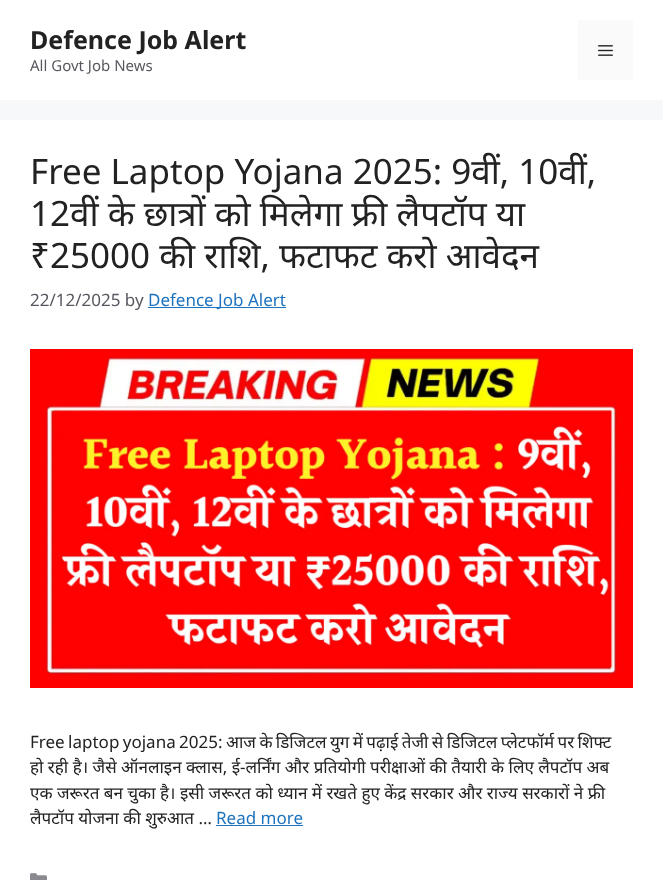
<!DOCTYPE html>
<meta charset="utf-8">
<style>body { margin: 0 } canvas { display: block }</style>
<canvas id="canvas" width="663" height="880"></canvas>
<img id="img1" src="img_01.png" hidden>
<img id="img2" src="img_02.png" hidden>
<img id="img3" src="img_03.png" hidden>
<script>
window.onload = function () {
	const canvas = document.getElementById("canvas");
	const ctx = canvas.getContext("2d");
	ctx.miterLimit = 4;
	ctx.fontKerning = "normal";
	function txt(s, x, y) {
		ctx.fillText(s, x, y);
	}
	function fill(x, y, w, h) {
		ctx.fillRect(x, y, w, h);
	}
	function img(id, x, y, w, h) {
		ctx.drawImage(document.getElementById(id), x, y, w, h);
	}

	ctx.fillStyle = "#F7F8F9";
	fill(0, 0, 663, 880);
	ctx.fillStyle = "#FFFFFF";
	fill(0, 0, 663, 100);
	ctx.fillStyle = "#FAFAFA";
	fill(578, 20, 55, 60);
	img("img1", 598, 45, 15, 11);
	ctx.fillStyle = "#FFFFFF";
	fill(0, 120, 663, 760);
	ctx.fillStyle = "#1E73BE";
	fill(148, 307, 138, 1);
	img("img2", 30, 349, 603, 339);
	fill(216, 825, 87, 1);
	img("img3", 30, 873, 17, 7);
	ctx.font = "bold 25px Noto Sans";
	ctx.fillStyle = "#222222";
	txt("Defence Job Alert", 30, 49);
	ctx.font = "15px Noto Sans";
	ctx.fillStyle = "#575760";
	txt("All Govt Job News", 30, 71);
	ctx.font = "35px Noto Sans";
	ctx.fillStyle = "#222222";
	txt("Free Laptop Yojana 2025: 9वीं, 10वीं,", 30, 184);
	txt("12वीं के छात्रों को मिलेगा फ्री लैपटॉप या", 30, 226);
	txt("₹25000 की राशि, फटाफट करो आवेदन", 30, 268);
	ctx.font = "17px Noto Sans";
	ctx.fillStyle = "#575760";
	txt("22/12/2025 by", 30, 306);
	ctx.fillStyle = "#1E73BE";
	txt("Defence Job Alert", 148, 306);
	ctx.wordSpacing = "-1px";
	ctx.fillStyle = "#222222";
	txt("Free laptop yojana 2025: आज के डिजिटल युग में पढ़ाई तेजी से डिजिटल प्लेटफॉर्म पर शिफ्ट", 30, 748);
	ctx.wordSpacing = "0px";
	txt("हो रही है। जैसे ऑनलाइन क्लास, ई-लर्निंग और प्रतियोगी परीक्षाओं की तैयारी के लिए लैपटॉप अब", 30, 773);
	txt("एक जरूरत बन चुका है। इसी जरूरत को ध्यान में रखते हुए केंद्र सरकार और राज्य सरकारों ने फ्री", 30, 799);
	txt("लैपटॉप योजना की शुरुआत …", 30, 824);
	ctx.fillStyle = "#1E73BE";
	txt("Read more", 216, 824);
};
</script>
